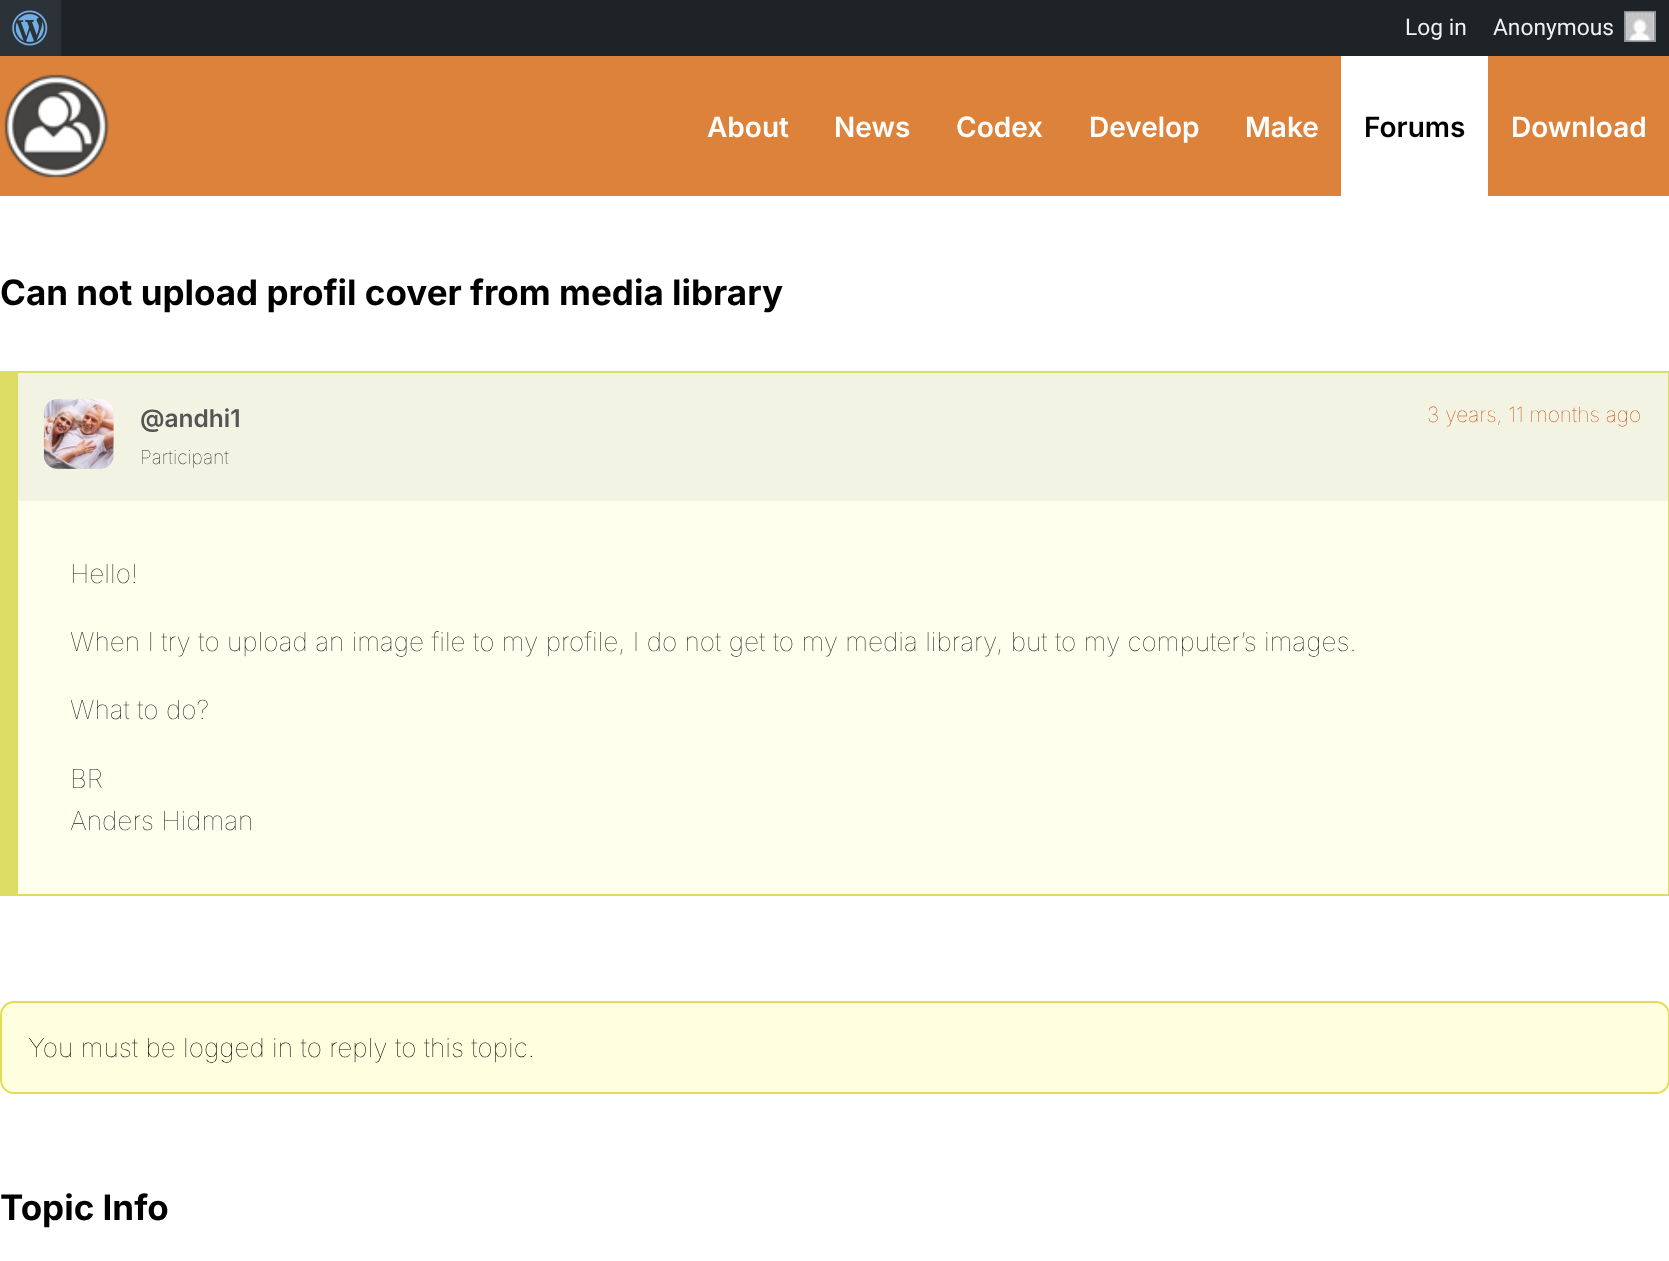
<!DOCTYPE html>
<meta charset="utf-8">
<style>body { margin: 0 } canvas { display: block }</style>
<canvas id="canvas" width="1669" height="1261"></canvas>
<img id="img1" src="img_01.png" hidden>
<img id="img2" src="img_02.png" hidden>
<img id="img3" src="img_03.png" hidden>
<img id="img4" src="img_04.png" hidden>
<script>
window.onload = function () {
	const canvas = document.getElementById("canvas");
	const ctx = canvas.getContext("2d");
	ctx.miterLimit = 4;
	ctx.fontKerning = "normal";
	function txt(s, x, y) {
		ctx.fillText(s, x, y);
	}
	function fill(x, y, w, h) {
		ctx.fillRect(x, y, w, h);
	}
	function img(id, x, y, w, h) {
		ctx.drawImage(document.getElementById(id), x, y, w, h);
	}

	ctx.fillStyle = "#FFFFFF";
	fill(0, 0, 1669, 1261);
	ctx.fillStyle = "#1D2327";
	fill(61, 0, 1608, 56);
	ctx.fillStyle = "#2C3338";
	fill(0, 0, 61, 56);
	img("img1", 12, 10, 36, 36);
	ctx.fillStyle = "#F0F0F1";
	ctx.beginPath();
	ctx.rect(1625, 12, 30, 29);
	ctx.fill();
	ctx.strokeStyle = "#8C8F94";
	ctx.lineWidth = 2;
	ctx.stroke();
	img("img2", 1625, 12, 30, 29);
	ctx.fillStyle = "#DD823B";
	fill(0, 56, 1669, 140);
	img("img3", 4, 74, 105, 104);
	ctx.fillStyle = "#FFFFFF";
	fill(1341, 56, 147, 140);
	ctx.fillStyle = "#DDDD66";
	fill(18, 371, 1651, 2);
	fill(1668, 371, 1, 525);
	fill(18, 894, 1651, 2);
	fill(0, 371, 18, 525);
	ctx.fillStyle = "#FFFFEE";
	fill(18, 501, 1650, 393);
	ctx.fillStyle = "#F3F3E3";
	fill(18, 373, 1650, 128);
	img("img4", 43, 399, 71, 70);
	ctx.fillStyle = "#FFFFE0";
	ctx.beginPath();
	ctx.roundRect(1, 1002, 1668, 91, 13);
	ctx.fill();
	ctx.strokeStyle = "#E6DB55";
	ctx.stroke();
	ctx.font = "22.75px Roboto";
	ctx.fillStyle = "#F0F0F1";
	txt("Log in", 1405, 35);
	txt("Anonymous", 1493, 35);
	ctx.font = "600 28px Inter";
	ctx.fillStyle = "#FFFFFF";
	txt("About", 707, 137);
	txt("News", 834, 137);
	txt("Codex", 956, 137);
	txt("Develop", 1089, 137);
	txt("Make", 1245, 137);
	ctx.fillStyle = "#000000";
	txt("Forums", 1364, 137);
	ctx.fillStyle = "#FFFFFF";
	txt("Download", 1511, 137);
	ctx.font = "bold 35px Inter";
	ctx.fillStyle = "#000000";
	txt("Can not upload profil cover from media library", 0, 305);
	ctx.font = "600 24.5px Inter";
	ctx.fillStyle = "#555555";
	txt("@andhi1", 140, 427);
	ctx.font = "100 19.25px Inter";
	ctx.fillStyle = "#222222";
	txt("Participant", 140, 464);
	ctx.font = "100 21px Inter";
	ctx.fillStyle = "#C74200";
	txt("3 years, 11 months ago", 1427, 422);
	ctx.font = "100 26.25px Inter";
	ctx.fillStyle = "#222222";
	txt("Hello!", 70, 583);
	txt("When I try to upload an image file to my profile, I do not get to my media library, but to my computer’s images.", 70, 651);
	txt("What to do?", 70, 719);
	txt("BR", 70, 788);
	txt("Anders Hidman", 70, 830);
	ctx.fillStyle = "#000000";
	txt("You must be logged in to reply to this topic.", 28, 1057);
	ctx.font = "bold 35px Inter";
	txt("Topic Info", 0, 1220);
};
</script>
